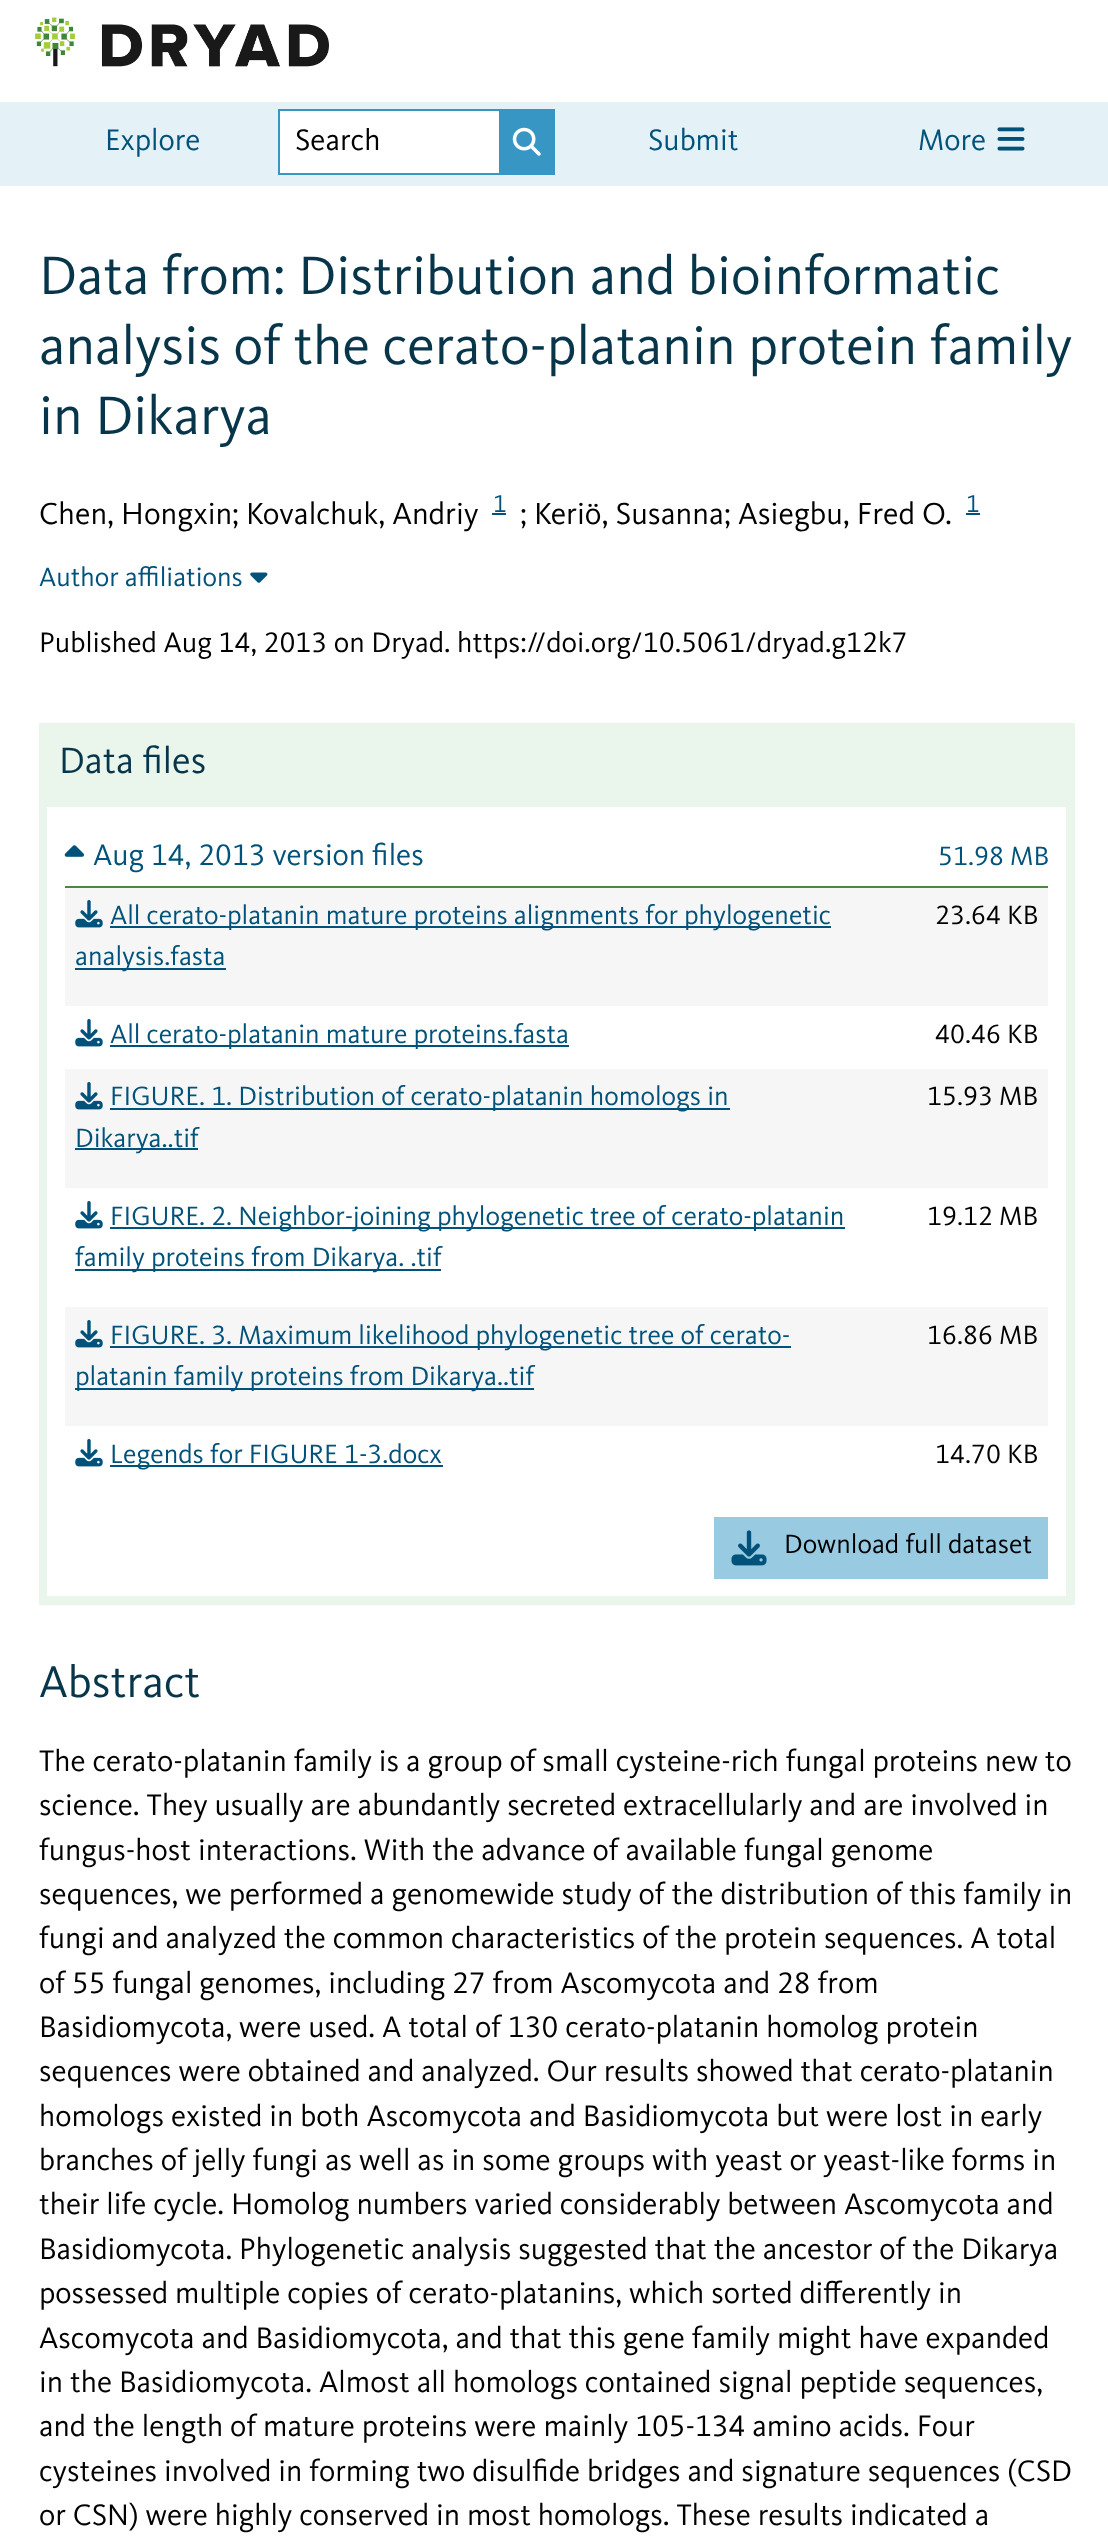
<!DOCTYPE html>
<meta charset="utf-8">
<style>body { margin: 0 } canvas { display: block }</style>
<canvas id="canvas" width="1108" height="2548"></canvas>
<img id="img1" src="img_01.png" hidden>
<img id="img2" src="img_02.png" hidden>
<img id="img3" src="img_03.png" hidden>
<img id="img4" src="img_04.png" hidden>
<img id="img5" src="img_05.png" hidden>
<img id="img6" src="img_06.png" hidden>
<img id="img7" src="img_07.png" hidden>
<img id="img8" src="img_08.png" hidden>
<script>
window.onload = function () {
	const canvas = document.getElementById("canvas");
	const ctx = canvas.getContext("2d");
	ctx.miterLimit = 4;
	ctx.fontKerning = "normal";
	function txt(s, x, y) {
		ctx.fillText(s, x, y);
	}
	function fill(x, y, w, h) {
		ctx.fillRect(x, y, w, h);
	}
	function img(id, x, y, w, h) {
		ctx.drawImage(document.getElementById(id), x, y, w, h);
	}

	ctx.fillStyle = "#FFFFFF";
	fill(0, 0, 1108, 2548);
	img("img1", 35, 17, 294, 50);
	ctx.fillStyle = "#E4F1F7";
	fill(0, 102, 1108, 84);
	ctx.fillStyle = "#3796C4";
	fill(278, 109, 277, 66);
	ctx.fillStyle = "#FFFFFF";
	fill(280, 111, 219, 62);
	img("img2", 512, 127, 29, 29);
	img("img3", 997, 127, 28, 24);
	ctx.fillStyle = "#00527A";
	fill(492, 513, 14, 2);
	fill(966, 513, 14, 2);
	img("img4", 250, 572, 18, 11);
	ctx.fillStyle = "#EAF5EB";
	fill(39, 723, 1036, 84);
	fill(1066, 807, 9, 789);
	fill(47, 1596, 1028, 9);
	fill(39, 807, 8, 798);
	ctx.fillStyle = "#528346";
	fill(65, 886, 983, 2);
	img("img5", 64, 845, 20, 12);
	ctx.fillStyle = "#F6F6F6";
	fill(65, 888, 983, 118);
	img("img6", 75, 900, 28, 28);
	ctx.fillStyle = "#00527A";
	fill(110, 926, 721, 2);
	fill(75, 968, 151, 2);
	img("img7", 75, 1019, 28, 28);
	fill(110, 1045, 459, 2);
	ctx.fillStyle = "#F6F6F6";
	fill(65, 1069, 983, 119);
	img("img6", 75, 1082, 28, 28);
	ctx.fillStyle = "#00527A";
	fill(110, 1108, 620, 2);
	fill(75, 1148, 123, 2);
	img("img7", 75, 1201, 28, 28);
	fill(110, 1227, 735, 2);
	fill(75, 1269, 366, 2);
	ctx.fillStyle = "#F6F6F6";
	fill(65, 1307, 983, 119);
	img("img6", 75, 1320, 28, 28);
	ctx.fillStyle = "#00527A";
	fill(110, 1346, 681, 2);
	fill(75, 1388, 459, 2);
	img("img7", 75, 1439, 28, 28);
	fill(110, 1465, 333, 2);
	ctx.fillStyle = "#98CAE2";
	fill(714, 1517, 334, 62);
	img("img8", 731, 1530, 36, 36);
	ctx.font = "30.8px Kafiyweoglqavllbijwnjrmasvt";
	ctx.fillStyle = "#00527A";
	txt("Explore", 105, 150);
	ctx.save();
	ctx.beginPath();
	ctx.rect(294, 128, 177, 30);
	ctx.clip();
	ctx.fillStyle = "#000000";
	txt("Search", 295, 150);
	ctx.restore();
	txt("Submit", 648, 150);
	txt("More", 918, 150);
	ctx.font = "56px Kafiyweoglqavllbijwnjrmasvt";
	ctx.fillStyle = "#07364B";
	txt("Data from: Distribution and bioinformatic", 39, 294);
	txt("analysis of the cerato-platanin protein family", 39, 364);
	txt("in Dikarya", 39, 434);
	ctx.font = "31.5px Kafiyweoglqavllbijwnjrmasvt";
	ctx.fillStyle = "#000000";
	txt("Chen, Hongxin", 39, 524);
	ctx.font = "30.8px Kafiyweoglqavllbijwnjrmasvt";
	txt(";", 232, 524);
	ctx.font = "31.5px Kafiyweoglqavllbijwnjrmasvt";
	txt("Kovalchuk, Andriy", 246, 524);
	ctx.font = "25px Kafiyweoglqavllbijwnjrmasvt";
	ctx.fillStyle = "#00527A";
	txt("1", 493, 512);
	ctx.font = "30.8px Kafiyweoglqavllbijwnjrmasvt";
	ctx.fillStyle = "#000000";
	txt(";", 520, 524);
	ctx.font = "31.5px Kafiyweoglqavllbijwnjrmasvt";
	txt("Keriö, Susanna", 534, 524);
	ctx.font = "30.8px Kafiyweoglqavllbijwnjrmasvt";
	txt(";", 724, 524);
	ctx.font = "31.5px Kafiyweoglqavllbijwnjrmasvt";
	txt("Asiegbu, Fred O.", 738, 524);
	ctx.font = "25px Kafiyweoglqavllbijwnjrmasvt";
	ctx.fillStyle = "#00527A";
	txt("1", 966, 512);
	ctx.font = "27.45px Kafiyweoglqavllbijwnjrmasvt";
	txt("Author affiliations", 39, 586);
	ctx.font = "29.25px Kafiyweoglqavllbijwnjrmasvt";
	ctx.fillStyle = "#000000";
	txt("Published Aug 14, 2013 on Dryad. https://doi.org/10.5061/dryad.g12k7", 39, 652);
	ctx.font = "38px Kafiyweoglqavllbijwnjrmasvt";
	ctx.fillStyle = "#07364B";
	txt("Data files", 59, 773);
	ctx.font = "30.8px Kafiyweoglqavllbijwnjrmasvt";
	ctx.fillStyle = "#00527A";
	txt("Aug 14, 2013 version files", 93, 865);
	ctx.font = "27.45px Kafiyweoglqavllbijwnjrmasvt";
	txt("51.98 MB", 938, 865);
	txt("All cerato-platanin mature proteins alignments for phylogenetic", 110, 924);
	txt("analysis.fasta", 75, 965);
	ctx.fillStyle = "#000000";
	txt("23.64 KB", 935, 924);
	ctx.fillStyle = "#00527A";
	txt("All cerato-platanin mature proteins.fasta", 110, 1043);
	ctx.fillStyle = "#000000";
	txt("40.46 KB", 935, 1043);
	ctx.fillStyle = "#00527A";
	txt("FIGURE. 1. Distribution of cerato-platanin homologs in", 110, 1105);
	txt("Dikarya..tif", 75, 1147);
	ctx.fillStyle = "#000000";
	txt("15.93 MB", 927, 1105);
	ctx.fillStyle = "#00527A";
	txt("FIGURE. 2. Neighbor-joining phylogenetic tree of cerato-platanin", 110, 1225);
	txt("family proteins from Dikarya. .tif", 75, 1266);
	ctx.fillStyle = "#000000";
	txt("19.12 MB", 927, 1225);
	ctx.fillStyle = "#00527A";
	txt("FIGURE. 3. Maximum likelihood phylogenetic tree of cerato-", 110, 1344);
	txt("platanin family proteins from Dikarya..tif", 75, 1385);
	ctx.fillStyle = "#000000";
	txt("16.86 MB", 927, 1344);
	ctx.fillStyle = "#00527A";
	txt("Legends for FIGURE 1-3.docx", 110, 1463);
	ctx.fillStyle = "#000000";
	txt("14.70 KB", 935, 1463);
	txt("Download full dataset", 784, 1553);
	ctx.font = "46px Kafiyweoglqavllbijwnjrmasvt";
	ctx.fillStyle = "#07364B";
	txt("Abstract", 39, 1697);
	ctx.font = "30.8px Kafiyweoglqavllbijwnjrmasvt";
	ctx.fillStyle = "#000000";
	txt("The cerato-platanin family is a group of small cysteine-rich fungal proteins new to", 39, 1771);
	txt("science. They usually are abundantly secreted extracellularly and are involved in", 39, 1815);
	txt("fungus-host interactions. With the advance of available fungal genome", 39, 1860);
	txt("sequences, we performed a genomewide study of the distribution of this family in", 39, 1904);
	txt("fungi and analyzed the common characteristics of the protein sequences. A total", 39, 1948);
	txt("of 55 fungal genomes, including 27 from Ascomycota and 28 from", 39, 1993);
	txt("Basidiomycota, were used. A total of 130 cerato-platanin homolog protein", 39, 2037);
	txt("sequences were obtained and analyzed. Our results showed that cerato-platanin", 39, 2081);
	txt("homologs existed in both Ascomycota and Basidiomycota but were lost in early", 39, 2126);
	txt("branches of jelly fungi as well as in some groups with yeast or yeast-like forms in", 39, 2170);
	txt("their life cycle. Homolog numbers varied considerably between Ascomycota and", 39, 2214);
	txt("Basidiomycota. Phylogenetic analysis suggested that the ancestor of the Dikarya", 39, 2259);
	txt("possessed multiple copies of cerato-platanins, which sorted differently in", 39, 2303);
	txt("Ascomycota and Basidiomycota, and that this gene family might have expanded", 39, 2348);
	txt("in the Basidiomycota. Almost all homologs contained signal peptide sequences,", 39, 2392);
	txt("and the length of mature proteins were mainly 105-134 amino acids. Four", 39, 2436);
	txt("cysteines involved in forming two disulfide bridges and signature sequences (CSD", 39, 2481);
	txt("or CSN) were highly conserved in most homologs. These results indicated a", 39, 2525);
};
</script>
